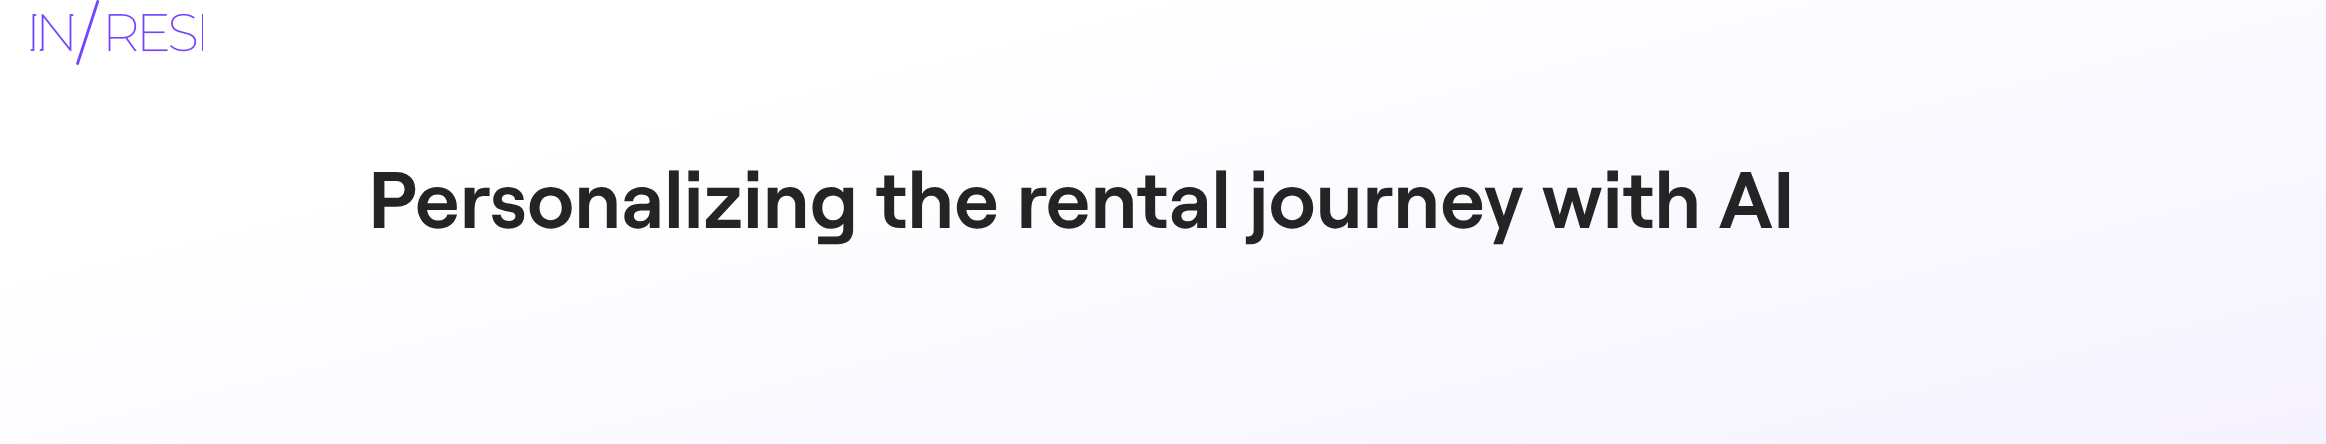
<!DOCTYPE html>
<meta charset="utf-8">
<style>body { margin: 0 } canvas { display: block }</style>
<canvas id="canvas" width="2326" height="444"></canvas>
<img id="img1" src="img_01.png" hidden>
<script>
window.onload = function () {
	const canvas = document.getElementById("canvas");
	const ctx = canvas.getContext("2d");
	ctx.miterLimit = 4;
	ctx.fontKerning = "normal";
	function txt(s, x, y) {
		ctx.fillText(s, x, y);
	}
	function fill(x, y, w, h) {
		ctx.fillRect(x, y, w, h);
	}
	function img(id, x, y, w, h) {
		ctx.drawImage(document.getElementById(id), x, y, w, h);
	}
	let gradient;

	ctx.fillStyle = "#FFFFFF";
	fill(0, 0, 2326, 444);
	gradient = ctx.createLinearGradient(912, -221, 1414, 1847);
	gradient.addColorStop(0.12, "#FFFFFF");
	gradient.addColorStop(0.8, "#ECE6FF");
	ctx.fillStyle = gradient;
	fill(0, 0, 2326, 444);
	img("img1", 30, 0, 173, 65);
	ctx.font = "600 80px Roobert";
	ctx.fillStyle = "#242424";
	txt("Personalizing the rental journey with AI", 368, 228);
};
</script>
